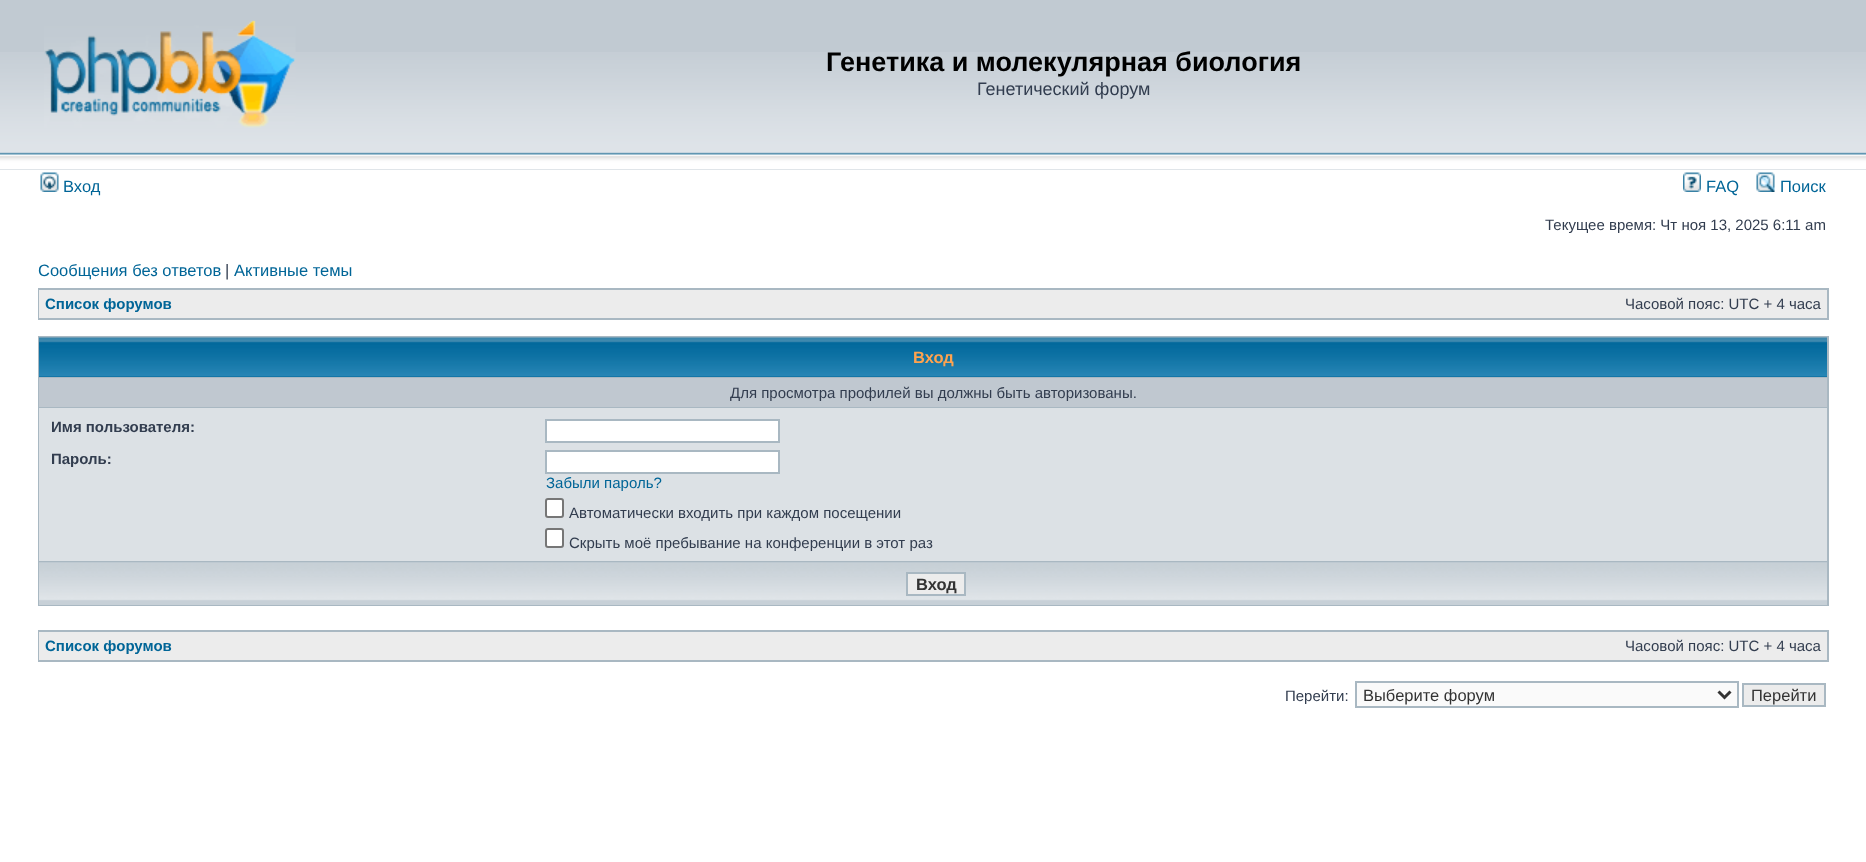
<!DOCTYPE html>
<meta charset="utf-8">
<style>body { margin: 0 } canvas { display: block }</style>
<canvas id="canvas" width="1866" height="862"></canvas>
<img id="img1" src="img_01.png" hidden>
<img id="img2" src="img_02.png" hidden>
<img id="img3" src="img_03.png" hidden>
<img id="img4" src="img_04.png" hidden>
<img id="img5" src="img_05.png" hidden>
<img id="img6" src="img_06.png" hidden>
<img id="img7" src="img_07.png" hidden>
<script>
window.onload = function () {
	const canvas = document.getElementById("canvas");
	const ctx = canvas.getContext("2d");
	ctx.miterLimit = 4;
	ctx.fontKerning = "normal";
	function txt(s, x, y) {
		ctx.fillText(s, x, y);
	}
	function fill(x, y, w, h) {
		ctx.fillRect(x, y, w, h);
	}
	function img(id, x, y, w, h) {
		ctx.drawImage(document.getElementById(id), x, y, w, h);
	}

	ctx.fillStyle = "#FFFFFF";
	fill(0, 0, 1866, 862);
	ctx.fillStyle = "#C1CAD2";
	fill(0, 0, 1866, 170);
	img("img1", 0, 52, 1866, 118);
	img("img2", 44, 20, 252, 108);
	img("img3", 40, 172, 19, 20);
	img("img4", 1683, 172, 18, 20);
	img("img5", 1756, 172, 19, 20);
	ctx.fillStyle = "#A9B8C2";
	fill(38, 288, 1791, 32);
	ctx.fillStyle = "#ECECEC";
	fill(39, 290, 1788, 28);
	ctx.fillStyle = "#A9B8C2";
	fill(38, 336, 1791, 270);
	ctx.fillStyle = "#006699";
	fill(39, 376, 1788, 1);
	img("img6", 39, 337, 1788, 40);
	ctx.fillStyle = "#C0C8D0";
	fill(39, 378, 1788, 29);
	ctx.fillStyle = "#DCE1E5";
	fill(39, 408, 1788, 153);
	ctx.fillStyle = "#FFFFFF";
	ctx.beginPath();
	ctx.rect(546, 420, 233, 22);
	ctx.fill();
	ctx.strokeStyle = "#A9B8C2";
	ctx.lineWidth = 2;
	ctx.stroke();
	ctx.beginPath();
	ctx.rect(546, 451, 233, 22);
	ctx.fill();
	ctx.stroke();
	ctx.beginPath();
	ctx.roundRect(546, 499, 17, 18, 2);
	ctx.fill();
	ctx.strokeStyle = "#767676";
	ctx.stroke();
	ctx.beginPath();
	ctx.roundRect(546, 529, 17, 18, 2);
	ctx.fill();
	ctx.stroke();
	ctx.fillStyle = "#C7D0D7";
	fill(39, 601, 1788, 4);
	img("img7", 39, 562, 1788, 39);
	ctx.fillStyle = "#ECECEC";
	ctx.beginPath();
	ctx.rect(907, 573, 58, 22);
	ctx.fill();
	ctx.strokeStyle = "#A9B8C2";
	ctx.stroke();
	ctx.fillStyle = "#A9B8C2";
	fill(38, 630, 1791, 32);
	ctx.fillStyle = "#ECECEC";
	fill(39, 632, 1788, 28);
	ctx.fillStyle = "#FAFAFA";
	ctx.beginPath();
	ctx.rect(1356, 682, 382, 25);
	ctx.fill();
	ctx.stroke();
	ctx.beginPath();
	ctx.moveTo(1718.5, 691.5);
	ctx.lineTo(1724.5, 697.5);
	ctx.lineTo(1730.5, 691.5);
	ctx.strokeStyle = "#333333";
	ctx.lineWidth = 3;
	ctx.stroke();
	ctx.fillStyle = "#ECECEC";
	ctx.beginPath();
	ctx.rect(1743, 684, 82, 22);
	ctx.fill();
	ctx.strokeStyle = "#A9B8C2";
	ctx.lineWidth = 2;
	ctx.stroke();
	ctx.font = "bold 27px Liberation Sans";
	ctx.fillStyle = "#000000";
	txt("Генетика и молекулярная биология", 826, 71);
	ctx.font = "18px Liberation Sans";
	ctx.fillStyle = "#323D4F";
	txt("Генетический форум", 977, 95);
	ctx.font = "16.5px Liberation Sans";
	ctx.fillStyle = "#006597";
	txt("Вход", 63, 192);
	txt("FAQ", 1706, 192);
	txt("Поиск", 1780, 192);
	ctx.font = "15px Liberation Sans";
	ctx.fillStyle = "#323D4F";
	txt("Текущее время: Чт ноя 13, 2025 6:11 am", 1545, 230);
	ctx.font = "16.5px Liberation Sans";
	ctx.fillStyle = "#006597";
	txt("Сообщения без ответов", 38, 276);
	ctx.fillStyle = "#323D4F";
	txt("|", 225, 276);
	ctx.fillStyle = "#006597";
	txt("Активные темы", 234, 276);
	ctx.font = "bold 15px Liberation Sans";
	txt("Список форумов", 45, 309);
	ctx.font = "15px Liberation Sans";
	ctx.fillStyle = "#323D4F";
	txt("Часовой пояс: UTC + 4 часа", 1625, 309);
	ctx.font = "bold 16.5px Liberation Sans";
	ctx.fillStyle = "#FFA34F";
	txt("Вход", 913, 363);
	ctx.font = "15px Liberation Sans";
	ctx.fillStyle = "#323D4F";
	txt("Для просмотра профилей вы должны быть авторизованы.", 730, 398);
	ctx.font = "bold 15px Liberation Sans";
	txt("Имя пользователя:", 51, 432);
	txt("Пароль:", 51, 464);
	ctx.font = "15px Liberation Sans";
	ctx.fillStyle = "#006597";
	txt("Забыли пароль?", 546, 488);
	ctx.fillStyle = "#323D4F";
	txt("Автоматически входить при каждом посещении", 569, 518);
	txt("Скрыть моё пребывание на конференции в этот раз", 569, 548);
	ctx.font = "bold 16.5px Liberation Sans";
	ctx.fillStyle = "#333333";
	txt("Вход", 916, 590);
	ctx.font = "bold 15px Liberation Sans";
	ctx.fillStyle = "#006597";
	txt("Список форумов", 45, 651);
	ctx.font = "15px Liberation Sans";
	ctx.fillStyle = "#323D4F";
	txt("Часовой пояс: UTC + 4 часа", 1625, 651);
	txt("Перейти:", 1285, 701);
	ctx.font = "16.5px Liberation Sans";
	ctx.fillStyle = "#333333";
	txt("Выберите форум", 1363, 701);
	txt("Перейти", 1751, 701);
};
</script>
